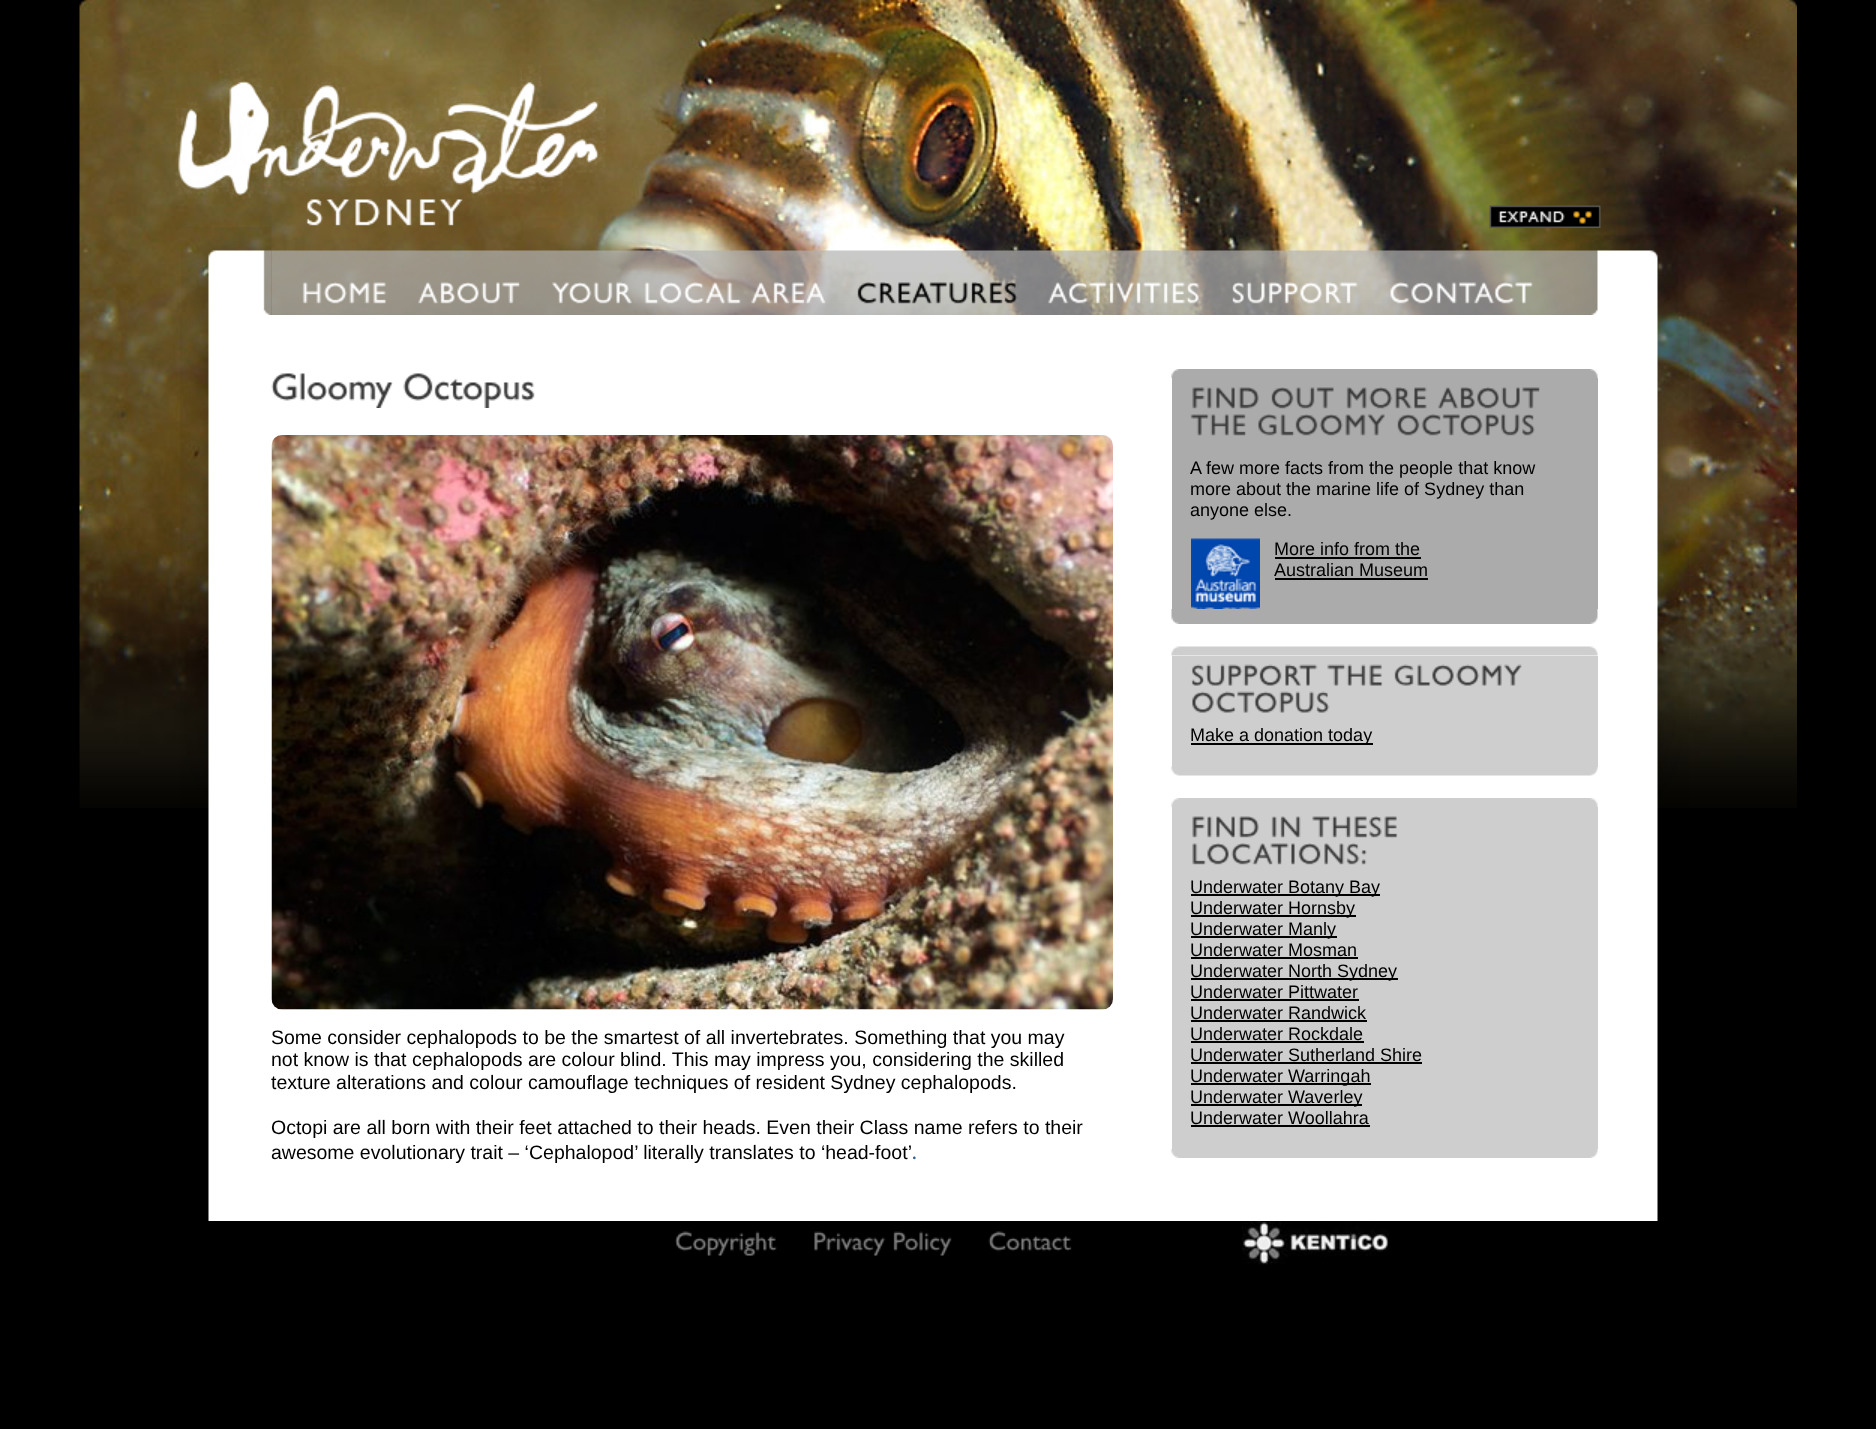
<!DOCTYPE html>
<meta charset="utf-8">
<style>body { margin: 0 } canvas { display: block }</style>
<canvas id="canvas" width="1876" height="1429"></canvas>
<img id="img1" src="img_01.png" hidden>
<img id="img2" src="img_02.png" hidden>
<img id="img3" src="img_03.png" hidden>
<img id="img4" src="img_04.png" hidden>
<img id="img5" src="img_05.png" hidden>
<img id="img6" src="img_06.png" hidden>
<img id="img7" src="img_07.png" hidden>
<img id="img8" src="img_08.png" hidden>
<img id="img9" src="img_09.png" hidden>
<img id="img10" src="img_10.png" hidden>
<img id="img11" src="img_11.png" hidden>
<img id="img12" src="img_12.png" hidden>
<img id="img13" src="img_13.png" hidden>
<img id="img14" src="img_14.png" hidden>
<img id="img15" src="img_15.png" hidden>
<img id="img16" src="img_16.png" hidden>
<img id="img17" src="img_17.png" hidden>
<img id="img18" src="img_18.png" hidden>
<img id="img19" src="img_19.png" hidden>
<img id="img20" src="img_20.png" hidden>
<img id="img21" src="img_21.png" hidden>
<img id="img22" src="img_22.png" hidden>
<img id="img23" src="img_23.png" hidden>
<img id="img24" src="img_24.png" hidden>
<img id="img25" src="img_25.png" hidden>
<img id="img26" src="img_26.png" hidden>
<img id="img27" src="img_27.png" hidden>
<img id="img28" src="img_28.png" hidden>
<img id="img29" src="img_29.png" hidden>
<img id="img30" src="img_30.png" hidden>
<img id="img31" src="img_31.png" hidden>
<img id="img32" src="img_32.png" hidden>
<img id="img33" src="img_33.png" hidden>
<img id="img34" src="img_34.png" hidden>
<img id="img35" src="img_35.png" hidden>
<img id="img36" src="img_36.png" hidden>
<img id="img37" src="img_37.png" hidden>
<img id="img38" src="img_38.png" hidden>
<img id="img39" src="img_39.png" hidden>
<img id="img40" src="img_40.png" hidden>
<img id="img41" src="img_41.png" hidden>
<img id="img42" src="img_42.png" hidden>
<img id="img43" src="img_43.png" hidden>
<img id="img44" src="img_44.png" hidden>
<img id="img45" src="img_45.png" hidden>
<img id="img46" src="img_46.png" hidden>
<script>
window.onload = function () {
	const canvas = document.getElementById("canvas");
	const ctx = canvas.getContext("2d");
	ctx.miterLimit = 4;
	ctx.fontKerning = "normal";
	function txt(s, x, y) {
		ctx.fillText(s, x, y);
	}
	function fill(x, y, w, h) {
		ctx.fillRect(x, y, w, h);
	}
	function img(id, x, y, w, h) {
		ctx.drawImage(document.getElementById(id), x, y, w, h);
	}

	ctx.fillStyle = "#000000";
	fill(0, 0, 1876, 1429);
	img("img1", 79, 0, 1718, 808);
	img("img2", 175, 64, 431, 162);
	img("img3", 1489, 205, 112, 23);
	img("img4", 181, 227, 91, 88);
	img("img5", 271, 250, 1304, 65);
	img("img6", 302, 282, 84, 22);
	img("img7", 418, 282, 102, 22);
	img("img8", 552, 282, 80, 22);
	img("img9", 644, 282, 97, 22);
	img("img10", 751, 282, 75, 22);
	img("img11", 857, 282, 161, 22);
	img("img12", 1048, 282, 151, 22);
	img("img13", 1232, 282, 126, 22);
	img("img14", 1390, 282, 144, 22);
	img("img15", 1575, 235, 103, 80);
	img("img16", 180, 315, 1509, 906);
	img("img17", 271, 373, 122, 35);
	img("img18", 403, 373, 132, 35);
	img("img19", 271, 435, 842, 575);
	img("img20", 1171, 369, 427, 9);
	ctx.fillStyle = "#ABABAB";
	fill(1172, 378, 426, 231);
	img("img21", 1192, 387, 67, 22);
	img("img22", 1271, 387, 63, 22);
	img("img23", 1346, 387, 81, 22);
	img("img24", 1438, 387, 102, 22);
	img("img25", 1190, 414, 56, 22);
	img("img26", 1258, 414, 127, 22);
	img("img27", 1397, 414, 138, 22);
	img("img28", 1191, 538, 69, 71);
	ctx.fillStyle = "#000000";
	fill(1275, 557, 146, 2);
	fill(1275, 578, 153, 2);
	img("img29", 1171, 609, 427, 15);
	img("img30", 1171, 646, 427, 10);
	ctx.fillStyle = "#CECECE";
	fill(1172, 656, 426, 111);
	img("img31", 1191, 664, 127, 22);
	img("img32", 1327, 664, 56, 22);
	img("img33", 1394, 664, 128, 22);
	img("img34", 1192, 691, 138, 22);
	ctx.fillStyle = "#000000";
	fill(1191, 743, 182, 2);
	img("img35", 1171, 766, 427, 10);
	img("img36", 1171, 798, 427, 9);
	ctx.fillStyle = "#CECECE";
	fill(1172, 807, 426, 342);
	img("img37", 1192, 816, 67, 22);
	img("img38", 1271, 816, 30, 22);
	img("img39", 1312, 816, 86, 22);
	img("img40", 1192, 843, 175, 22);
	ctx.fillStyle = "#000000";
	fill(1191, 894, 189, 2);
	fill(1191, 915, 165, 2);
	fill(1191, 936, 146, 2);
	fill(1191, 957, 167, 2);
	fill(1191, 978, 207, 2);
	fill(1191, 999, 168, 2);
	fill(1191, 1020, 176, 2);
	fill(1191, 1041, 173, 2);
	fill(1191, 1062, 231, 2);
	fill(1191, 1083, 180, 2);
	fill(1191, 1104, 171, 2);
	fill(1191, 1125, 179, 2);
	img("img41", 1171, 1149, 427, 9);
	img("img42", 675, 1231, 102, 25);
	img("img43", 814, 1231, 72, 25);
	img("img44", 893, 1231, 59, 25);
	img("img45", 988, 1231, 84, 21);
	img("img46", 1242, 1221, 147, 44);
	ctx.font = "19.5px Liberation Sans";
	txt("Some consider cephalopods to be the smartest of all invertebrates. Something that you may", 271, 1044);
	txt("not know is that cephalopods are colour blind. This may impress you, considering the skilled", 271, 1066);
	txt("texture alterations and colour camouflage techniques of resident Sydney cephalopods.", 271, 1089);
	txt("Octopi are all born with their feet attached to their heads. Even their Class name refers to their", 271, 1134);
	txt("awesome evolutionary trait – ‘Cephalopod’ literally translates to ‘head-foot’", 271, 1159);
	ctx.font = "italic 22px Carlito";
	ctx.fillStyle = "#365F91";
	txt(".", 912, 1159);
	ctx.font = "18px Liberation Sans";
	ctx.fillStyle = "#000000";
	txt("A few more facts from the people that know", 1190, 474);
	txt("more about the marine life of Sydney than", 1190, 495);
	txt("anyone else.", 1190, 516);
	txt("More info from the", 1274, 555);
	txt("Australian Museum", 1274, 576);
	txt("Make a donation today", 1190, 741);
	txt("Underwater Botany Bay", 1190, 893);
	txt("Underwater Hornsby", 1190, 914);
	txt("Underwater Manly", 1190, 935);
	txt("Underwater Mosman", 1190, 956);
	txt("Underwater North Sydney", 1190, 977);
	txt("Underwater Pittwater", 1190, 998);
	txt("Underwater Randwick", 1190, 1019);
	txt("Underwater Rockdale", 1190, 1040);
	txt("Underwater Sutherland Shire", 1190, 1061);
	txt("Underwater Warringah", 1190, 1082);
	txt("Underwater Waverley", 1190, 1103);
	txt("Underwater Woollahra", 1190, 1124);
};
</script>
